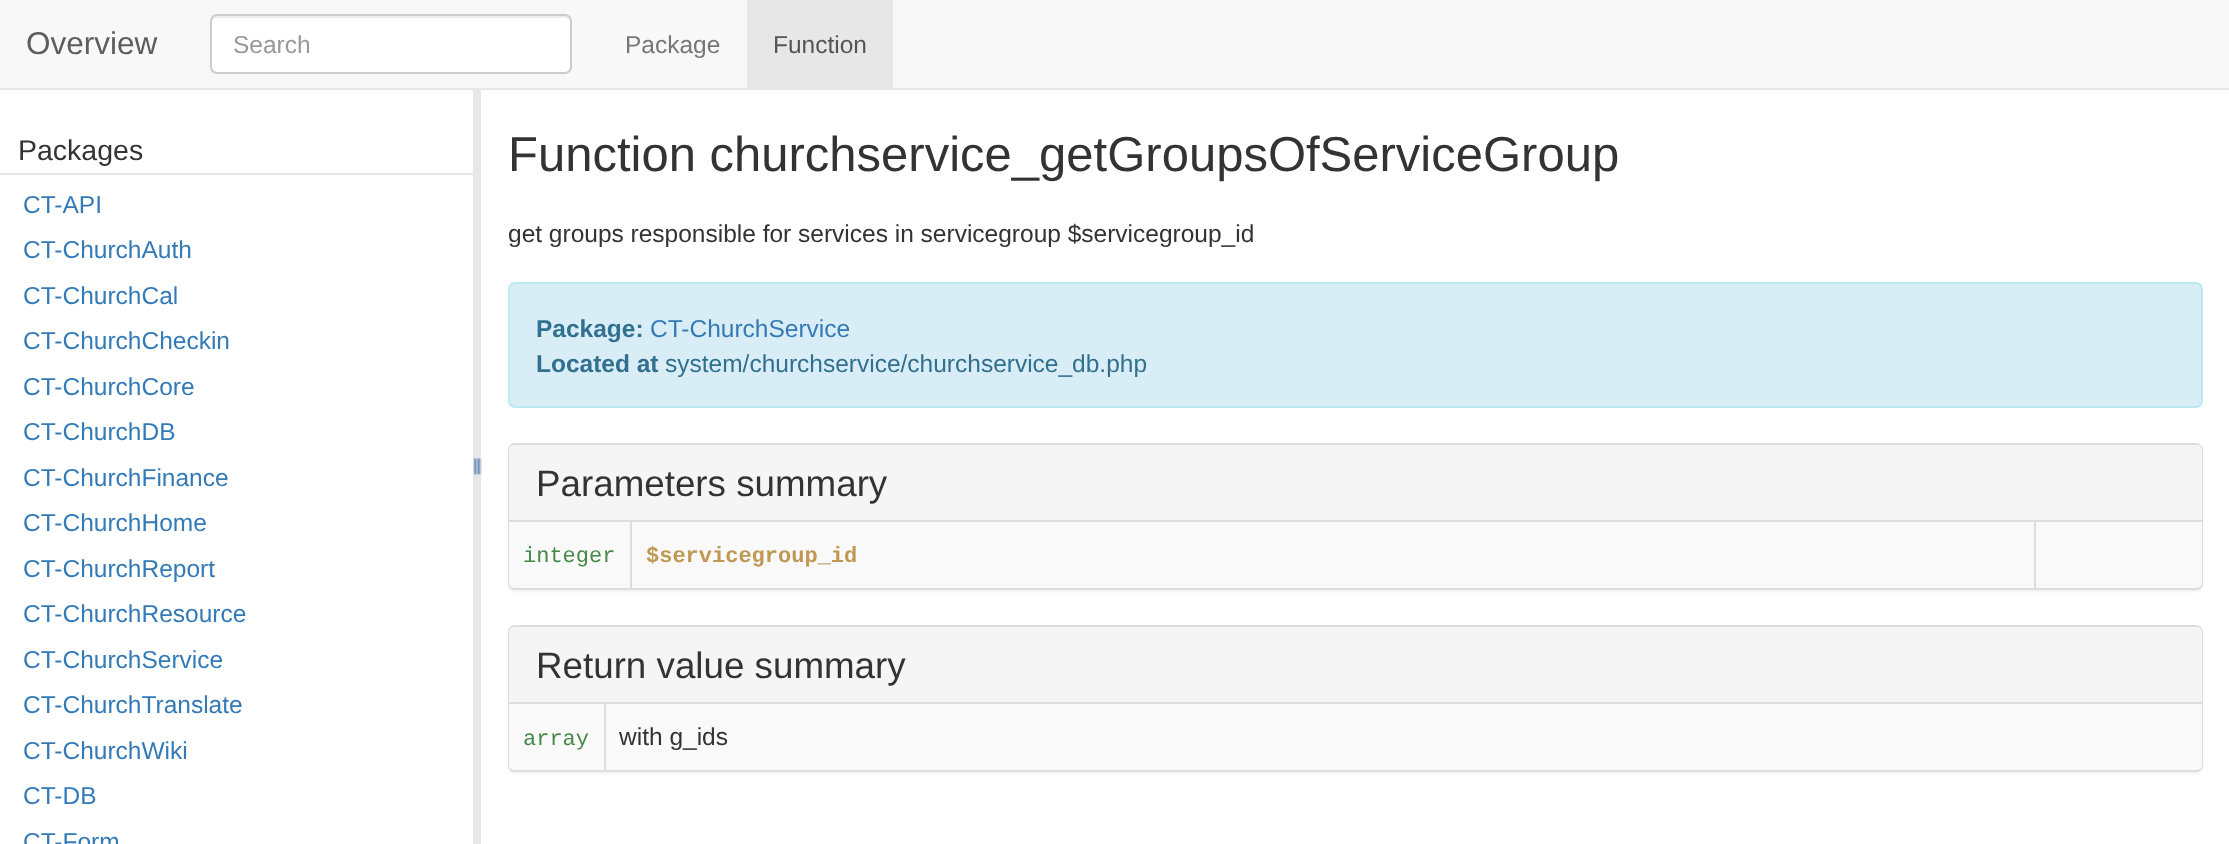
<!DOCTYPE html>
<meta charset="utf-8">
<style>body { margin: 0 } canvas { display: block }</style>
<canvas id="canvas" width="2229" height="844"></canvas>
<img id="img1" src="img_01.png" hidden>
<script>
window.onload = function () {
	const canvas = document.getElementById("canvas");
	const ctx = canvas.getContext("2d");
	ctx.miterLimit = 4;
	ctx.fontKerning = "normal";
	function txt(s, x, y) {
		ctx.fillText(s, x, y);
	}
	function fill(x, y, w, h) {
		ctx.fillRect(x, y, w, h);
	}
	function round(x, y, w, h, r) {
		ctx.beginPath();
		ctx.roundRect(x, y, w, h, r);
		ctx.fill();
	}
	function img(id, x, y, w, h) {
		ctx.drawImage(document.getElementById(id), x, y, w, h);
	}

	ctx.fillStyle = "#FFFFFF";
	fill(0, 0, 2229, 844);
	ctx.fillStyle = "#F8F8F8";
	fill(0, 0, 2229, 88);
	ctx.fillStyle = "#E7E7E7";
	fill(473, 88, 8, 756);
	fill(0, 88, 2229, 2);
	ctx.fillStyle = "#FFFFFF";
	round(210, 14, 362, 60, 7);
	ctx.fillStyle = "#ECECEC";
	ctx.beginPath();
	ctx.moveTo(217, 18);
	ctx.lineTo(565, 18);
	ctx.bezierCurveTo(568, 18, 570, 20, 570, 23);
	ctx.lineTo(570, 68);
	ctx.lineTo(570, 71);
	ctx.bezierCurveTo(570, 70, 571, 68, 571, 67);
	ctx.lineTo(571, 21);
	ctx.bezierCurveTo(571, 18, 569, 16, 566, 16);
	ctx.lineTo(217, 16);
	ctx.bezierCurveTo(214, 16, 212, 18, 212, 21);
	ctx.lineTo(212, 23);
	ctx.bezierCurveTo(212, 20, 214, 18, 217, 18);
	ctx.closePath();
	ctx.fill();
	ctx.beginPath();
	ctx.roundRect(211, 15, 360, 58, 6);
	ctx.strokeStyle = "#CCCCCC";
	ctx.lineWidth = 2;
	ctx.stroke();
	ctx.fillStyle = "#E7E7E7";
	fill(747, 0, 146, 88);
	fill(0, 173, 473, 2);
	img("img1", 473, 458, 9, 17);
	ctx.fillStyle = "#D9EDF7";
	ctx.beginPath();
	ctx.roundRect(509, 283, 1693, 124, 6);
	ctx.fill();
	ctx.strokeStyle = "#BCE8F1";
	ctx.stroke();
	ctx.fillStyle = "rgba(0, 0, 0, 0.05)";
	ctx.filter = "blur(1px)";
	ctx.beginPath();
	ctx.roundRect(508, 445, 1695, 147, 7);
	ctx.fill();
	ctx.filter = "none";
	ctx.beginPath();
	ctx.roundRect(509, 444, 1693, 145, 6);
	ctx.strokeStyle = "#DDDDDD";
	ctx.stroke();
	ctx.fillStyle = "#F5F5F5";
	ctx.beginPath();
	ctx.roundRect(509, 445, 1693, 77, [5, 5, 0, 0]);
	ctx.fill();
	ctx.fillStyle = "#DDDDDD";
	fill(509, 520, 1693, 2);
	ctx.fillStyle = "#F9F9F9";
	ctx.beginPath();
	ctx.roundRect(509, 522, 1693, 66, [0, 0, 5, 5]);
	ctx.fill();
	ctx.fillStyle = "#DDDDDD";
	fill(630, 522, 2, 68);
	fill(2034, 522, 2, 68);
	ctx.fillStyle = "rgba(0, 0, 0, 0.05)";
	ctx.filter = "blur(1px)";
	ctx.beginPath();
	ctx.roundRect(508, 627, 1695, 147, 7);
	ctx.fill();
	ctx.filter = "none";
	ctx.beginPath();
	ctx.roundRect(509, 626, 1693, 145, 6);
	ctx.stroke();
	ctx.fillStyle = "#F5F5F5";
	ctx.beginPath();
	ctx.roundRect(509, 627, 1693, 77, [5, 5, 0, 0]);
	ctx.fill();
	ctx.fillStyle = "#DDDDDD";
	fill(509, 702, 1693, 2);
	ctx.fillStyle = "#F9F9F9";
	ctx.beginPath();
	ctx.roundRect(509, 704, 1693, 66, [0, 0, 5, 5]);
	ctx.fill();
	ctx.fillStyle = "#DDDDDD";
	fill(604, 704, 2, 68);
	ctx.font = "31.5px Liberation Sans";
	ctx.fillStyle = "#5E5E5E";
	txt("Overview", 26, 54);
	ctx.font = "24.5px Liberation Sans";
	ctx.fillStyle = "#999999";
	txt("Search", 233, 53);
	ctx.fillStyle = "#777777";
	txt("Package", 625, 53);
	ctx.fillStyle = "#555555";
	txt("Function", 773, 53);
	ctx.font = "28.5px Liberation Sans";
	ctx.fillStyle = "#333333";
	txt("Packages", 18, 160);
	ctx.font = "24.5px Liberation Sans";
	ctx.fillStyle = "#337AB7";
	txt("CT-API", 23, 213);
	txt("CT-ChurchAuth", 23, 258);
	txt("CT-ChurchCal", 23, 304);
	txt("CT-ChurchCheckin", 23, 349);
	txt("CT-ChurchCore", 23, 395);
	txt("CT-ChurchDB", 23, 440);
	txt("CT-ChurchFinance", 23, 486);
	txt("CT-ChurchHome", 23, 531);
	txt("CT-ChurchReport", 23, 577);
	txt("CT-ChurchResource", 23, 622);
	txt("CT-ChurchService", 23, 668);
	txt("CT-ChurchTranslate", 23, 713);
	txt("CT-ChurchWiki", 23, 759);
	txt("CT-DB", 23, 804);
	txt("CT-Form", 23, 850);
	ctx.font = "49px Liberation Sans";
	ctx.fillStyle = "#333333";
	txt("Function churchservice_getGroupsOfServiceGroup", 508, 171);
	ctx.font = "24.5px Liberation Sans";
	txt("get groups responsible for services in servicegroup $servicegroup_id", 508, 242);
	ctx.font = "bold 24.5px Liberation Sans";
	ctx.fillStyle = "#31708F";
	txt("Package:", 536, 337);
	ctx.font = "24.5px Liberation Sans";
	ctx.fillStyle = "#337AB7";
	txt("CT-ChurchService", 650, 337);
	ctx.font = "bold 24.5px Liberation Sans";
	ctx.fillStyle = "#31708F";
	txt("Located at", 536, 372);
	ctx.font = "24.5px Liberation Sans";
	txt("system/churchservice/churchservice_db.php", 665, 372);
	ctx.font = "36.75px Liberation Sans";
	ctx.fillStyle = "#333333";
	txt("Parameters summary", 536, 496);
	ctx.font = "22px Liberation Mono";
	ctx.fillStyle = "#468847";
	txt("integer", 523, 562);
	ctx.font = "bold 22px Liberation Mono";
	ctx.fillStyle = "#C09853";
	txt("$servicegroup_id", 646, 562);
	ctx.font = "36.75px Liberation Sans";
	ctx.fillStyle = "#333333";
	txt("Return value summary", 536, 678);
	ctx.font = "22px Liberation Mono";
	ctx.fillStyle = "#468847";
	txt("array", 523, 745);
	ctx.font = "24.5px Liberation Sans";
	ctx.fillStyle = "#333333";
	txt("with g_ids", 619, 745);
};
</script>
